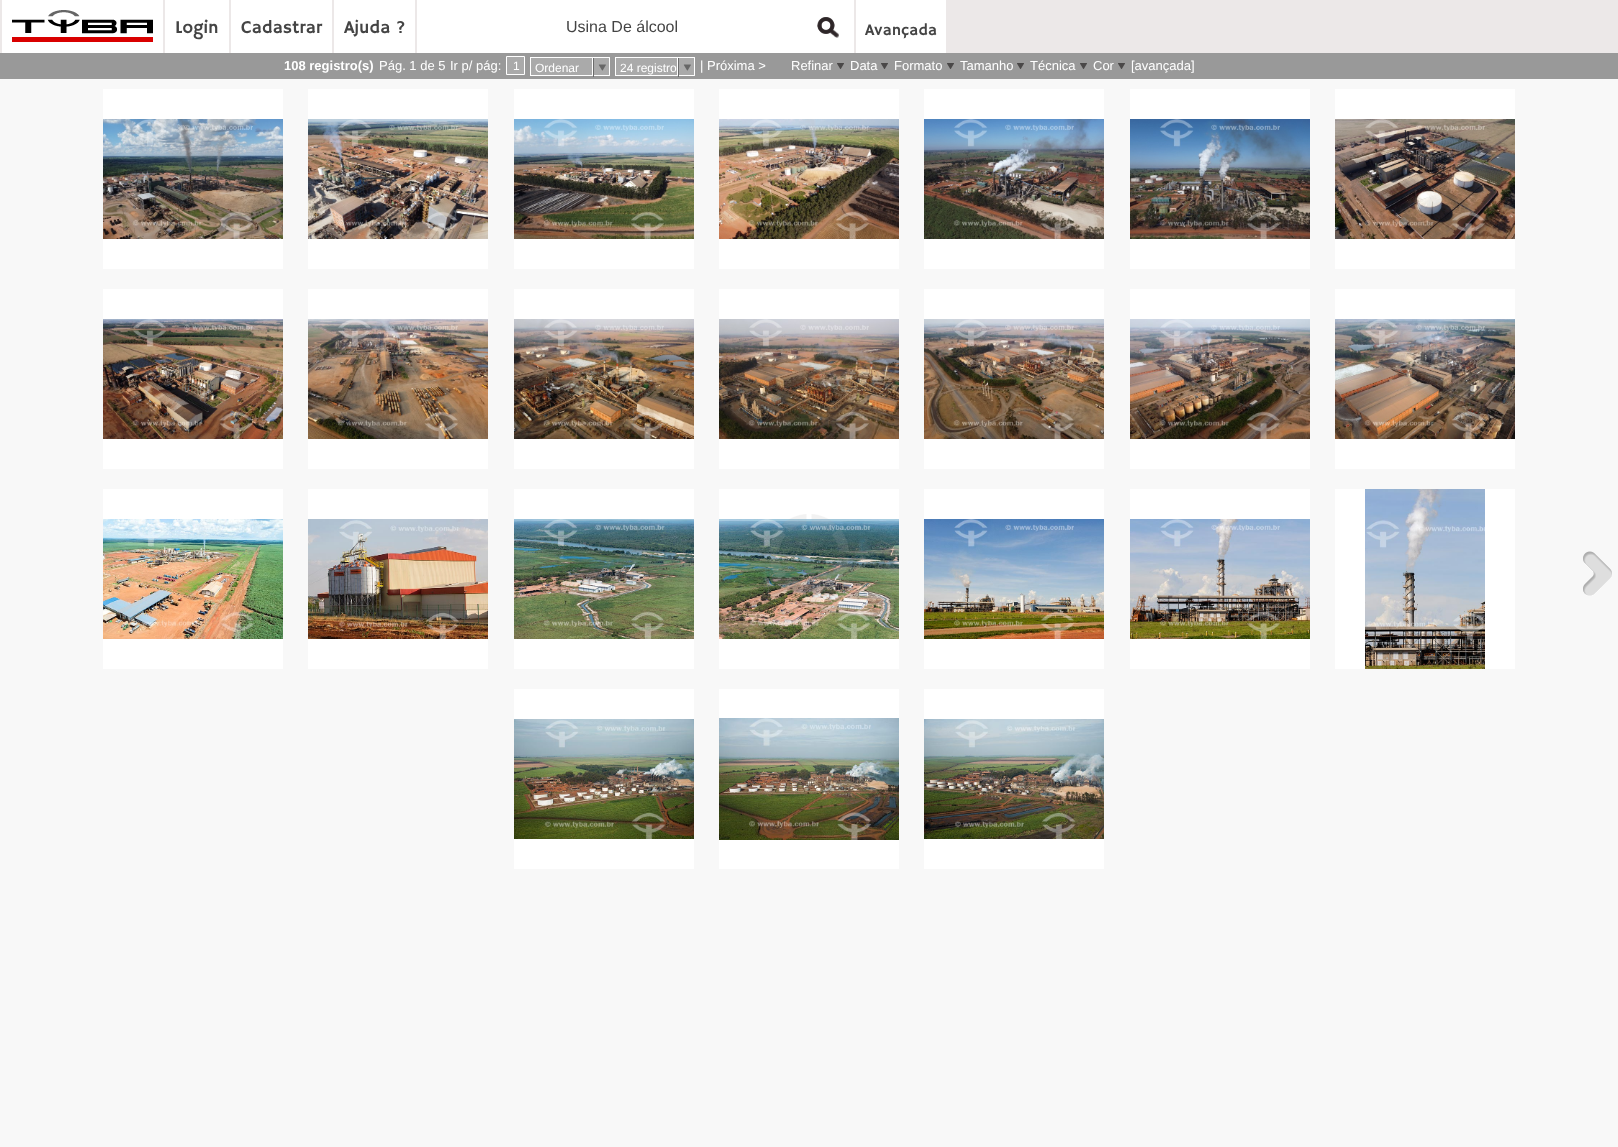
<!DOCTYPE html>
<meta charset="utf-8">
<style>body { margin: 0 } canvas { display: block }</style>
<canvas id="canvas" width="1618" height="1147"></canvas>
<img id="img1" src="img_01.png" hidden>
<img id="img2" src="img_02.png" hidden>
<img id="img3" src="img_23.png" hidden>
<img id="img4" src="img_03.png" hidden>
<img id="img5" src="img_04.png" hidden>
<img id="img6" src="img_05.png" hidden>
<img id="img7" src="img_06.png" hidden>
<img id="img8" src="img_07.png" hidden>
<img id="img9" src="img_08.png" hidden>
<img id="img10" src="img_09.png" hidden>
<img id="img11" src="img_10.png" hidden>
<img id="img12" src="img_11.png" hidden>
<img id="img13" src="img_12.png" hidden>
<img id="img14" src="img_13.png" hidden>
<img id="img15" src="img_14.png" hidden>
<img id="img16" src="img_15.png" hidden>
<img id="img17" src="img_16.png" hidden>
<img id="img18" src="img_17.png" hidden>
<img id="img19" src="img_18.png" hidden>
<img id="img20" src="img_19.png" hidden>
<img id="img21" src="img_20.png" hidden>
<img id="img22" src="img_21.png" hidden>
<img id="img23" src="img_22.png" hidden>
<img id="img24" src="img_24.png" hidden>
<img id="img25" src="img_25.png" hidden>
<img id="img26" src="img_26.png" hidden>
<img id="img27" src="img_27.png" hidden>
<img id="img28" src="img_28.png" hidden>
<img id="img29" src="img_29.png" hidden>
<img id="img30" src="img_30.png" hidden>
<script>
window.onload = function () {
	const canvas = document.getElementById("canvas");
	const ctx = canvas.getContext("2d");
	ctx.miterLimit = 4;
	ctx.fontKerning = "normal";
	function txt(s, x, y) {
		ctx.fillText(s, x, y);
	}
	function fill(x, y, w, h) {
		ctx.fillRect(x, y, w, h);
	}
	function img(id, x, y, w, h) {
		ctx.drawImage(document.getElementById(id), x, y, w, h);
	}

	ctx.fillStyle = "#F8F8F8";
	fill(0, 0, 1618, 1147);
	ctx.fillStyle = "#ECE8E8";
	fill(0, 0, 1618, 53);
	ctx.fillStyle = "#FFFFFF";
	fill(2, 0, 161, 53);
	img("img1", 12, 10, 141, 32);
	fill(165, 0, 64, 53);
	fill(231, 0, 101, 53);
	fill(334, 0, 81, 53);
	fill(417, 0, 437, 53);
	img("img2", 817, 17, 22, 21);
	fill(856, 0, 90, 53);
	fill(719, 489, 180, 180);
	img("img3", 719, 519, 180, 120);
	img("img4", 769, 514, 80, 80);
	ctx.fillStyle = "#999999";
	fill(0, 53, 1618, 26);
	ctx.fillStyle = "#AAAAAA";
	ctx.beginPath();
	ctx.rect(506.5, 56.5, 18, 18);
	ctx.fill();
	ctx.strokeStyle = "#FFFFFF";
	ctx.stroke();
	fill(531, 58, 61, 17);
	ctx.strokeRect(530.5, 57.5, 79, 18);
	ctx.beginPath();
	ctx.rect(592.5, 57.5, 17, 18);
	ctx.fill();
	ctx.stroke();
	img("img5", 593, 58, 13, 19);
	fill(616, 58, 61, 17);
	ctx.strokeRect(615.5, 57.5, 79, 18);
	ctx.beginPath();
	ctx.rect(677.5, 57.5, 17, 18);
	ctx.fill();
	ctx.stroke();
	img("img5", 678, 58, 13, 19);
	img("img6", 837, 63, 7, 6);
	img("img6", 881, 63, 7, 6);
	img("img6", 947, 63, 7, 6);
	img("img6", 1017, 63, 7, 6);
	img("img6", 1080, 63, 7, 6);
	img("img6", 1118, 63, 7, 6);
	ctx.fillStyle = "#FFFFFF";
	fill(103, 89, 180, 180);
	img("img7", 103, 119, 180, 120);
	fill(308, 89, 180, 180);
	img("img8", 308, 119, 180, 120);
	fill(514, 89, 180, 180);
	img("img9", 514, 119, 180, 120);
	fill(719, 89, 180, 180);
	img("img10", 719, 119, 180, 120);
	fill(924, 89, 180, 180);
	img("img11", 924, 119, 180, 120);
	fill(1130, 89, 180, 180);
	img("img12", 1130, 119, 180, 120);
	fill(1335, 89, 180, 180);
	img("img13", 1335, 119, 180, 120);
	fill(103, 289, 180, 180);
	img("img14", 103, 319, 180, 120);
	fill(308, 289, 180, 180);
	img("img15", 308, 319, 180, 120);
	fill(514, 289, 180, 180);
	img("img16", 514, 319, 180, 120);
	fill(719, 289, 180, 180);
	img("img17", 719, 319, 180, 120);
	fill(924, 289, 180, 180);
	img("img18", 924, 319, 180, 120);
	fill(1130, 289, 180, 180);
	img("img19", 1130, 319, 180, 120);
	fill(1335, 289, 180, 180);
	img("img20", 1335, 319, 180, 120);
	fill(103, 489, 180, 180);
	img("img21", 103, 519, 180, 120);
	fill(308, 489, 180, 180);
	img("img22", 308, 519, 180, 120);
	fill(514, 489, 180, 180);
	img("img23", 514, 519, 180, 120);
	fill(924, 489, 180, 180);
	img("img24", 924, 519, 180, 120);
	fill(1130, 489, 180, 180);
	img("img25", 1130, 519, 180, 120);
	fill(1335, 489, 180, 180);
	img("img26", 1365, 489, 120, 180);
	fill(514, 689, 180, 180);
	img("img27", 514, 719, 180, 120);
	fill(719, 689, 180, 180);
	img("img28", 719, 718, 180, 122);
	fill(924, 689, 180, 180);
	img("img29", 924, 719, 180, 120);
	img("img30", 1583, 551, 29, 45);
	ctx.font = "18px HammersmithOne";
	ctx.fillStyle = "#444444";
	txt("Login", 175, 33);
	txt("Cadastrar", 241, 33);
	txt("Ajuda ?", 344, 33);
	ctx.font = "16px Liberation Sans";
	txt("Usina De álcool", 566, 32);
	ctx.font = "16px HammersmithOne";
	txt("Avançada", 865, 35);
	ctx.font = "bold 13px Liberation Sans";
	ctx.fillStyle = "#FFFFFF";
	txt("108 registro(s)", 284, 70);
	ctx.font = "13px Liberation Sans";
	txt("Pág. 1 de 5", 379, 70);
	txt("Ir p/ pág:", 450, 70);
	ctx.font = "12px Liberation Sans";
	txt("1", 513, 70);
	txt("Ordenar", 535, 72);
	txt("24 registro", 620, 72);
	ctx.font = "13px Liberation Sans";
	txt("| Próxima >", 700, 70);
	txt("Refinar", 791, 70);
	txt("Data", 850, 70);
	txt("Formato", 894, 70);
	txt("Tamanho", 960, 70);
	txt("Técnica", 1030, 70);
	txt("Cor", 1093, 70);
	txt("[avançada]", 1131, 70);
};
</script>
